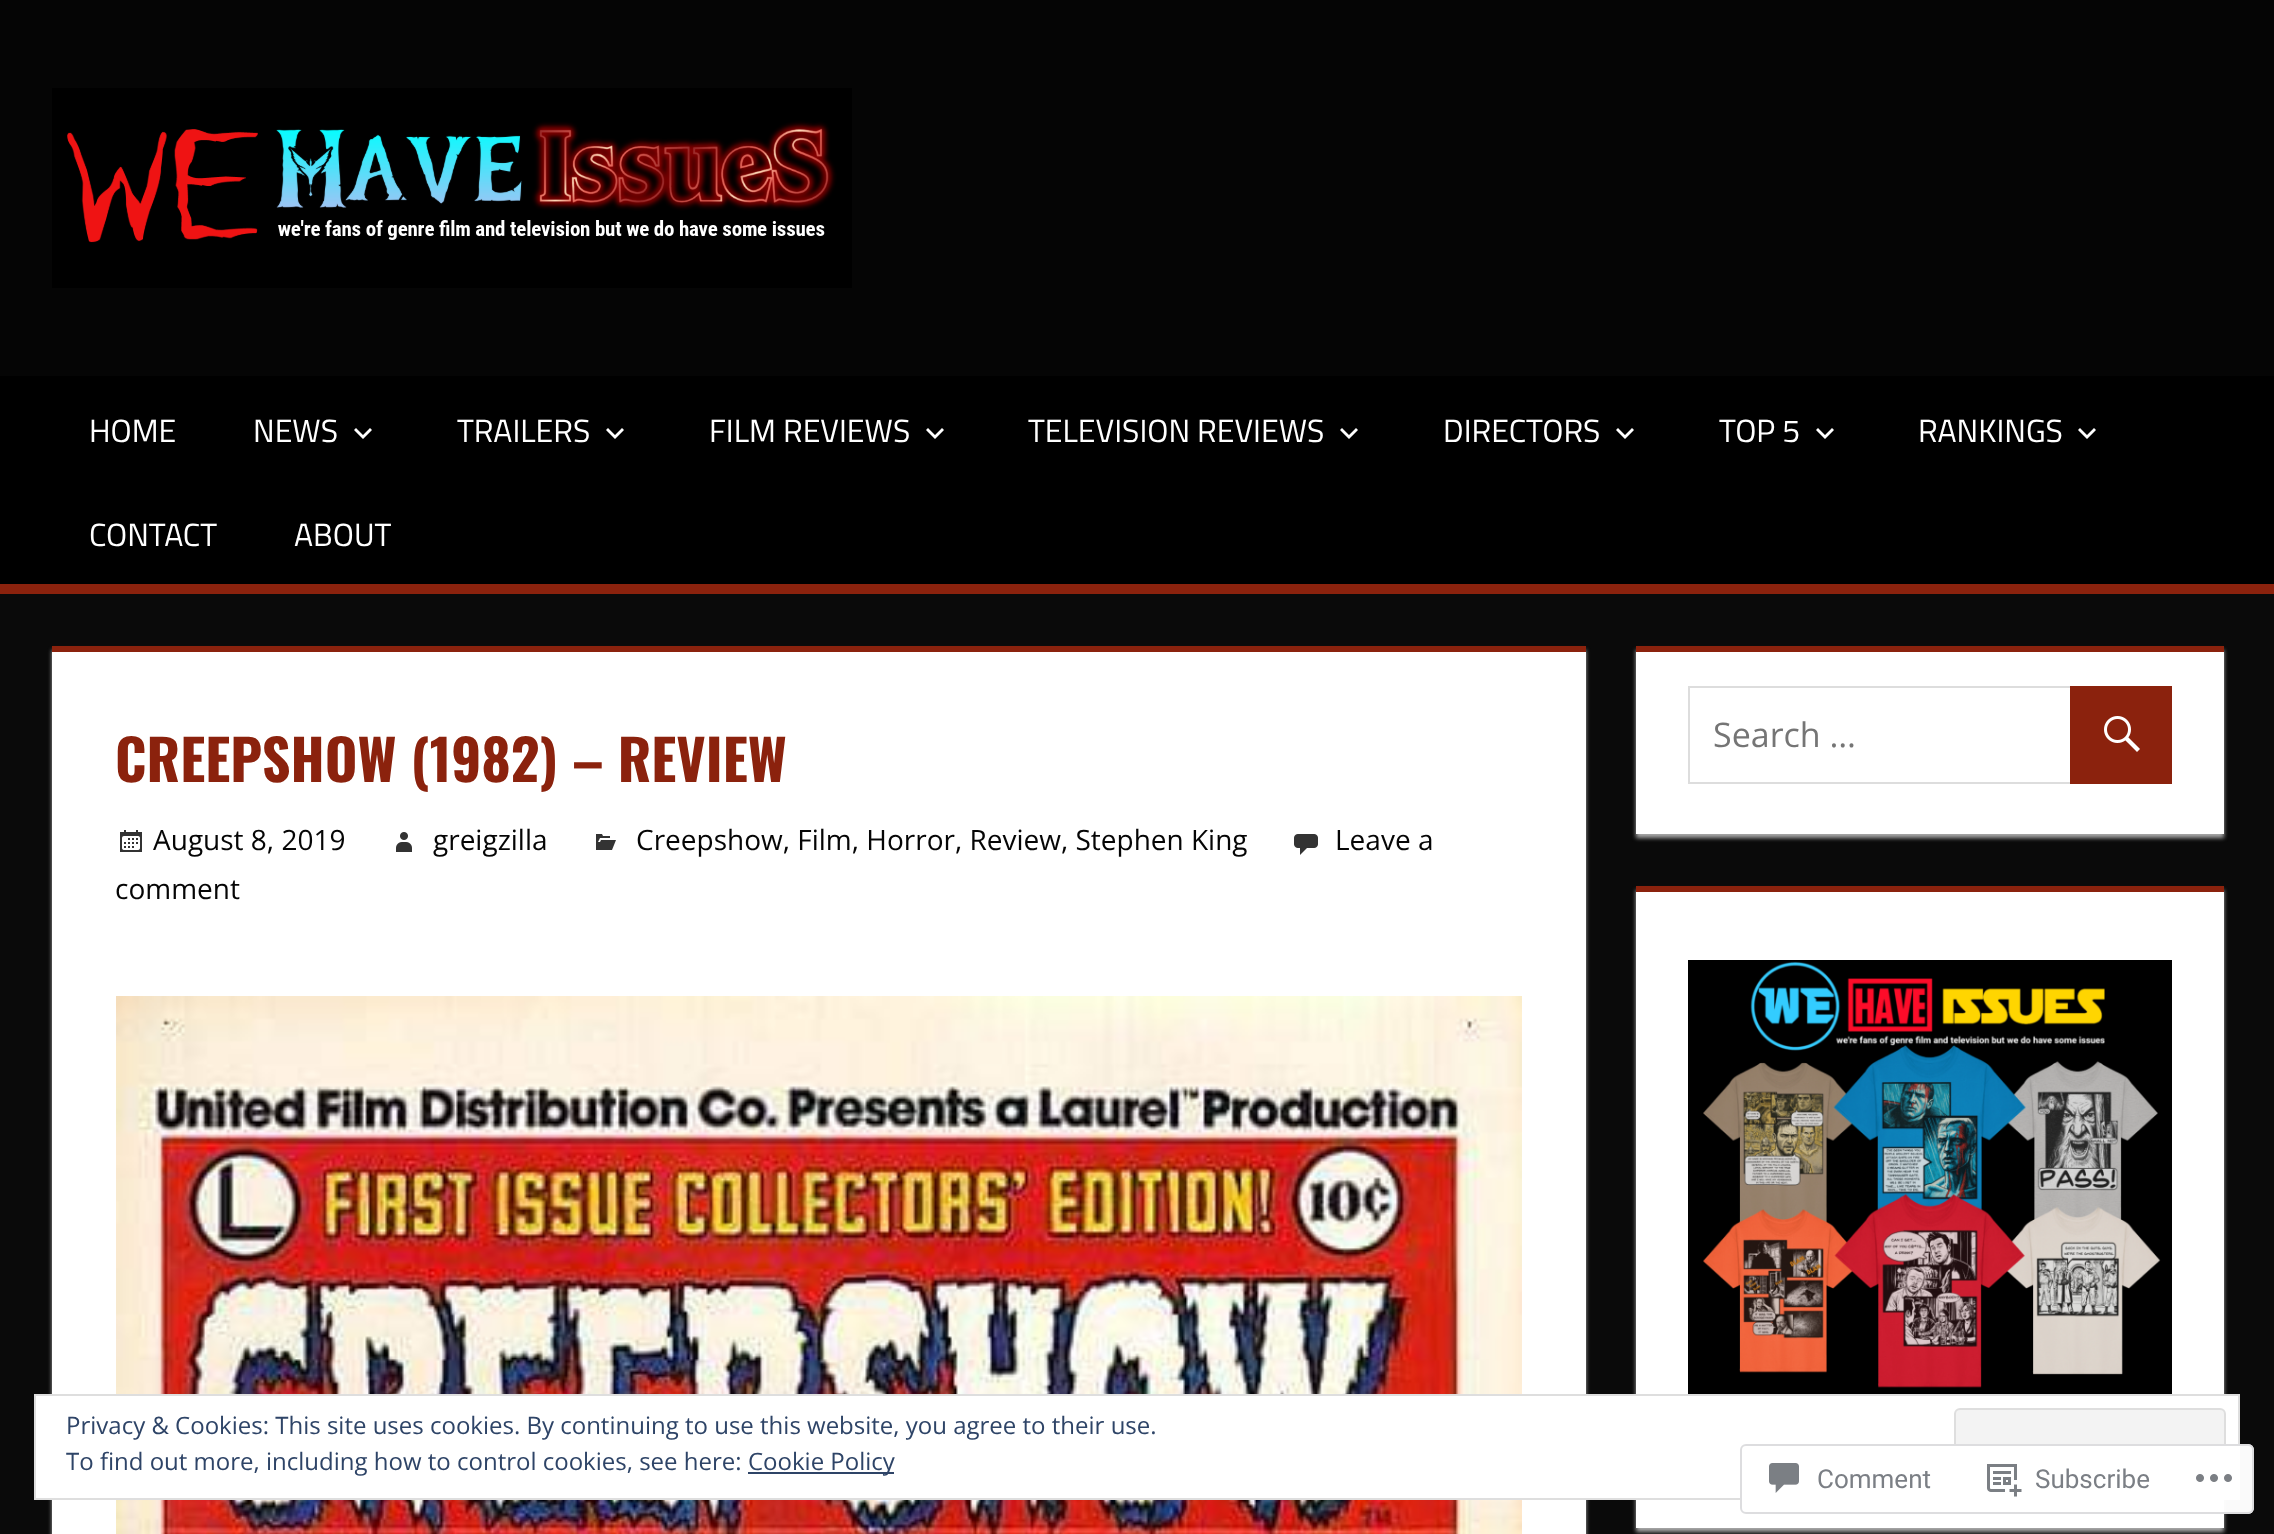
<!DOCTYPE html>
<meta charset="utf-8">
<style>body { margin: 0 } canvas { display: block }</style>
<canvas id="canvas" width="2274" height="1534"></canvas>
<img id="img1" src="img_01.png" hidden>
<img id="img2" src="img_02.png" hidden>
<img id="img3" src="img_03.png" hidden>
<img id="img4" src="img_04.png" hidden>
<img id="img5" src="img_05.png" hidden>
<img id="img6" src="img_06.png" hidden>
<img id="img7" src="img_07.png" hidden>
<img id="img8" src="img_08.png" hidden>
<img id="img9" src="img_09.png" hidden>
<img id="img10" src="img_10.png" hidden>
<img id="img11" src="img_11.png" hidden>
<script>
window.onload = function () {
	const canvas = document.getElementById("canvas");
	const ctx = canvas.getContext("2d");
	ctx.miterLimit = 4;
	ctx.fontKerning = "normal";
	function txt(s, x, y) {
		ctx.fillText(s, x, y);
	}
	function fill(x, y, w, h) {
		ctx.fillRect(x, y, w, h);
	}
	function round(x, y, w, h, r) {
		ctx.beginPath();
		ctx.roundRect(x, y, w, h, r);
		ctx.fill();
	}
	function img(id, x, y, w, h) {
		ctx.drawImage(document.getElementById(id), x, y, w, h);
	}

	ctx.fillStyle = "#0A0A0A";
	fill(0, 0, 2274, 1534);
	ctx.fillStyle = "#050505";
	fill(0, 0, 2274, 376);
	img("img1", 52, 88, 800, 200);
	ctx.fillStyle = "#000000";
	fill(0, 376, 2274, 208);
	ctx.fillStyle = "#8B220D";
	fill(0, 584, 2274, 10);
	ctx.fillStyle = "#FFFFFF";
	ctx.beginPath();
	ctx.moveTo(370, 428);
	ctx.lineTo(372, 430);
	ctx.lineTo(363, 439);
	ctx.lineTo(354, 430);
	ctx.lineTo(356, 428);
	ctx.lineTo(363, 435);
	ctx.closePath();
	ctx.fill();
	ctx.beginPath();
	ctx.moveTo(622, 428);
	ctx.lineTo(624, 430);
	ctx.lineTo(615, 439);
	ctx.lineTo(606, 430);
	ctx.lineTo(608, 428);
	ctx.lineTo(615, 435);
	ctx.closePath();
	ctx.fill();
	ctx.beginPath();
	ctx.moveTo(942, 428);
	ctx.lineTo(944, 430);
	ctx.lineTo(935, 439);
	ctx.lineTo(926, 430);
	ctx.lineTo(928, 428);
	ctx.lineTo(935, 435);
	ctx.closePath();
	ctx.fill();
	ctx.beginPath();
	ctx.moveTo(1356, 428);
	ctx.lineTo(1358, 430);
	ctx.lineTo(1349, 439);
	ctx.lineTo(1340, 430);
	ctx.lineTo(1342, 428);
	ctx.lineTo(1349, 435);
	ctx.closePath();
	ctx.fill();
	ctx.beginPath();
	ctx.moveTo(1632, 428);
	ctx.lineTo(1634, 430);
	ctx.lineTo(1625, 439);
	ctx.lineTo(1616, 430);
	ctx.lineTo(1618, 428);
	ctx.lineTo(1625, 435);
	ctx.closePath();
	ctx.fill();
	ctx.beginPath();
	ctx.moveTo(1832, 428);
	ctx.lineTo(1834, 430);
	ctx.lineTo(1825, 439);
	ctx.lineTo(1816, 430);
	ctx.lineTo(1818, 428);
	ctx.lineTo(1825, 435);
	ctx.closePath();
	ctx.fill();
	ctx.beginPath();
	ctx.moveTo(2094, 428);
	ctx.lineTo(2096, 430);
	ctx.lineTo(2087, 439);
	ctx.lineTo(2078, 430);
	ctx.lineTo(2080, 428);
	ctx.lineTo(2087, 435);
	ctx.closePath();
	ctx.fill();
	ctx.fillStyle = "#AAAAAA";
	ctx.filter = "blur(2px)";
	ctx.beginPath();
	ctx.rect(52, 650, 1534, 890);
	ctx.fill();
	ctx.filter = "none";
	ctx.fillStyle = "#FFFFFF";
	fill(52, 652, 1534, 882);
	ctx.fillStyle = "#8B220D";
	fill(52, 646, 1534, 6);
	img("img2", 120, 830, 22, 22);
	img("img3", 396, 832, 16, 20);
	img("img4", 596, 834, 20, 16);
	img("img5", 1294, 834, 24, 21);
	img("img6", 116, 996, 1406, 538);
	ctx.fillStyle = "#AAAAAA";
	ctx.filter = "blur(2px)";
	ctx.beginPath();
	ctx.rect(1636, 650, 588, 188);
	ctx.fill();
	ctx.filter = "none";
	ctx.fillStyle = "#FFFFFF";
	fill(1636, 652, 588, 182);
	ctx.fillStyle = "#8B220D";
	fill(1636, 646, 588, 6);
	ctx.strokeStyle = "#DDDDDD";
	ctx.lineWidth = 2;
	ctx.strokeRect(1689, 687, 482, 96);
	fill(2070, 686, 102, 98);
	img("img7", 2104, 716, 36, 36);
	ctx.fillStyle = "#AAAAAA";
	ctx.filter = "blur(2px)";
	ctx.beginPath();
	ctx.rect(1636, 890, 588, 642);
	ctx.fill();
	ctx.filter = "none";
	ctx.fillStyle = "#FFFFFF";
	fill(1636, 892, 588, 636);
	ctx.fillStyle = "#8B220D";
	fill(1636, 886, 588, 6);
	img("img8", 1688, 960, 484, 434);
	ctx.fillStyle = "#FFFFFF";
	ctx.beginPath();
	ctx.rect(35, 1395, 2204, 104);
	ctx.fill();
	ctx.strokeStyle = "#DEDEDE";
	ctx.stroke();
	ctx.fillStyle = "#F3F3F3";
	ctx.beginPath();
	ctx.roundRect(1955, 1409, 270, 76, 5);
	ctx.fill();
	ctx.stroke();
	ctx.fillStyle = "#2E4467";
	fill(748, 1472, 146, 2);
	ctx.fillStyle = "rgba(255, 255, 255, 0.98)";
	round(1740, 1444, 514, 70, 6);
	ctx.beginPath();
	ctx.roundRect(1741, 1445, 512, 68, 5);
	ctx.strokeStyle = "rgba(220, 220, 222, 0.98)";
	ctx.stroke();
	img("img9", 1769, 1463, 30, 30);
	img("img10", 1987, 1464, 35, 33);
	img("img11", 2196, 1474, 36, 8);
	ctx.font = "32px Titillium Web";
	ctx.fillStyle = "#FFFFFF";
	txt("HOME", 89, 442);
	txt("NEWS", 253, 442);
	txt("TRAILERS", 457, 442);
	txt("FILM REVIEWS", 709, 442);
	txt("TELEVISION REVIEWS", 1028, 442);
	txt("DIRECTORS", 1443, 442);
	txt("TOP 5", 1719, 442);
	txt("RANKINGS", 1918, 442);
	txt("CONTACT", 89, 546);
	txt("ABOUT", 294, 546);
	ctx.font = "bold 56px Oswald";
	ctx.fillStyle = "#8B220D";
	txt("CREEPSHOW (1982) – REVIEW", 115, 782);
	ctx.font = "28px Open Sans";
	ctx.fillStyle = "#050505";
	txt("August 8, 2019", 153, 850);
	txt("greigzilla", 433, 850);
	txt("Creepshow, Film, Horror, Review, Stephen King", 636, 850);
	txt("Leave a", 1335, 850);
	txt("comment", 115, 899);
	ctx.font = "34px Open Sans";
	ctx.fillStyle = "#757575";
	txt("Search …", 1713, 747);
	ctx.font = "24px Open Sans";
	ctx.fillStyle = "#2E4467";
	txt("Privacy & Cookies: This site uses cookies. By continuing to use this website, you agree to their use.", 66, 1434);
	txt("To find out more, including how to control cookies, see here:", 66, 1470);
	txt("Cookie Policy", 748, 1470);
	ctx.font = "26px Roboto";
	ctx.fillStyle = "#7B7F85";
	txt("Comment", 1817, 1488);
	txt("Subscribe", 2035, 1488);
};
</script>
